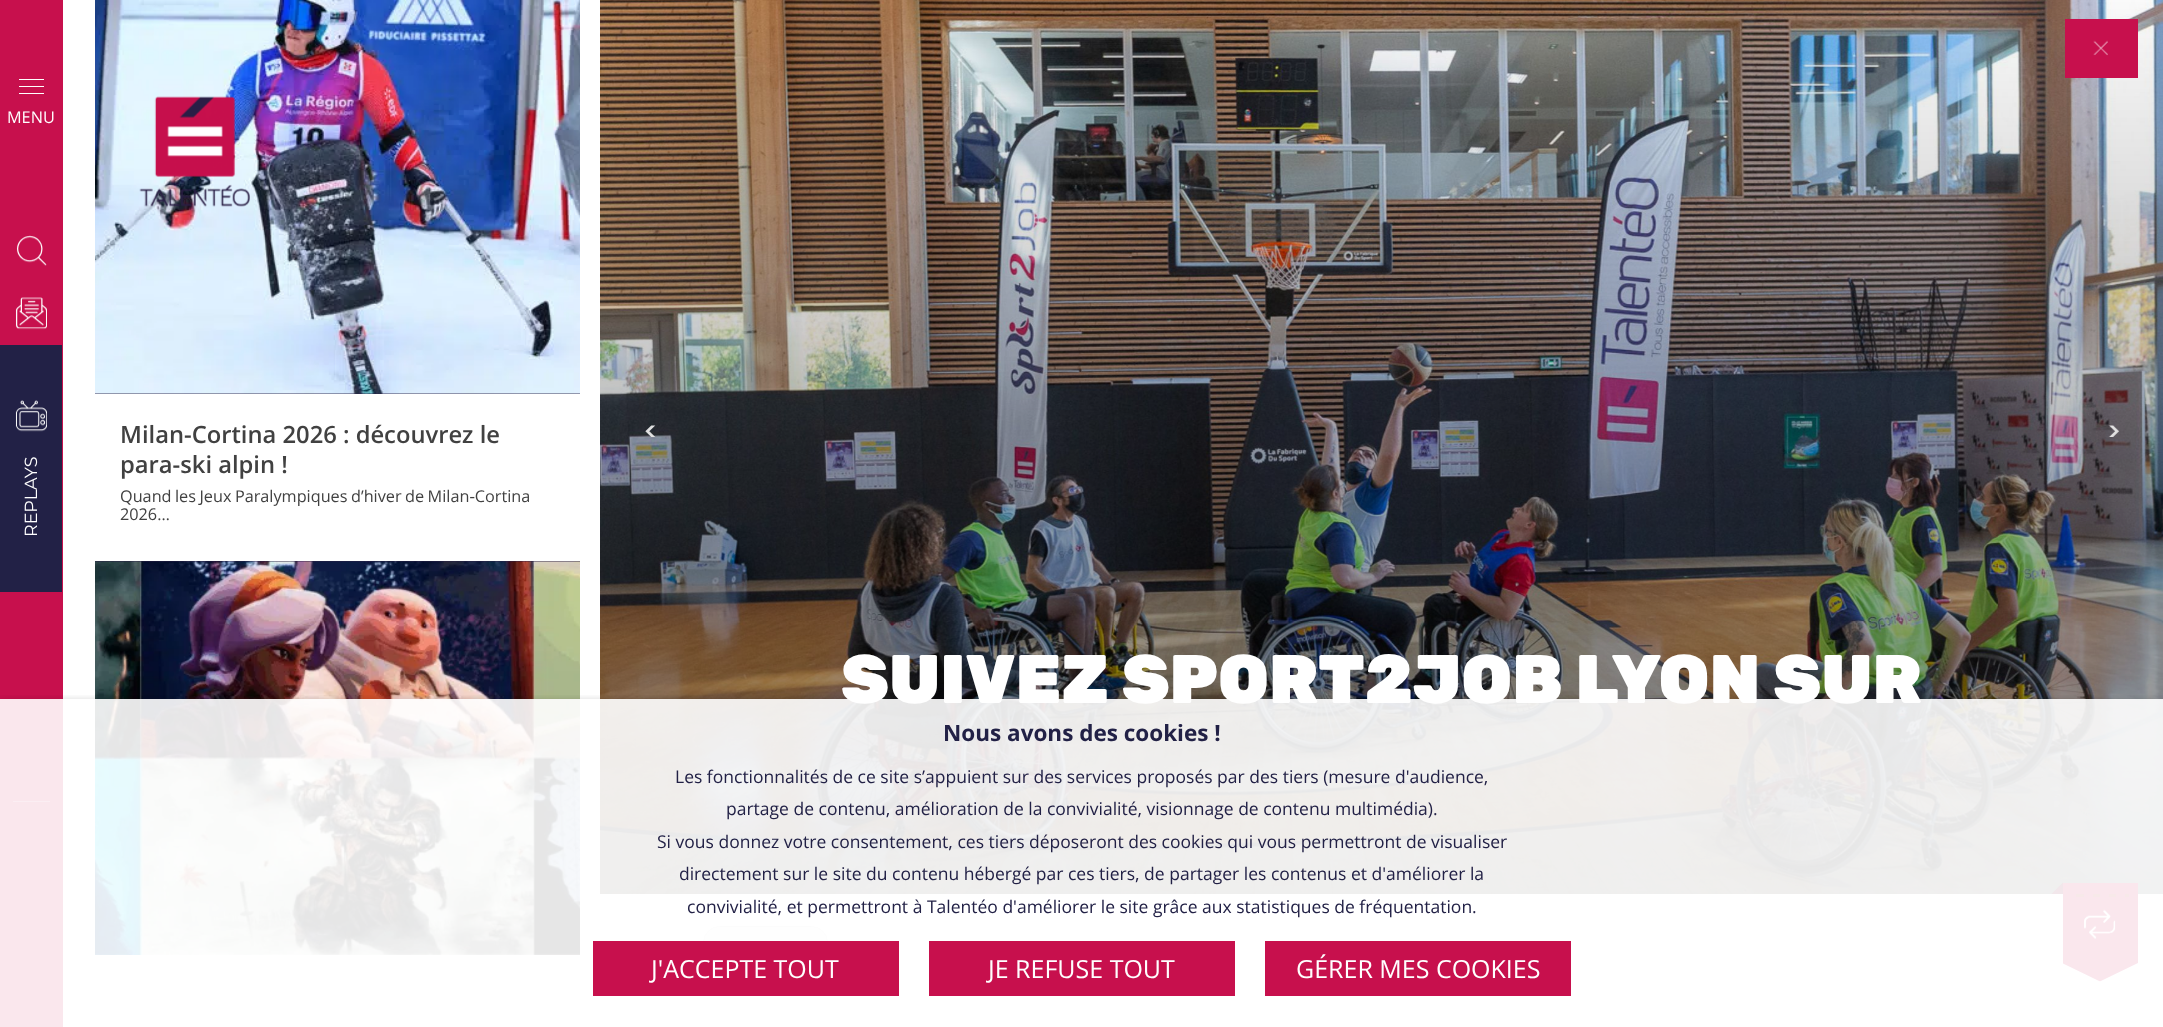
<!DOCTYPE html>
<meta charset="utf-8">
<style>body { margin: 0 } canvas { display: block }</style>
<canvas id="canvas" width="2163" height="1027"></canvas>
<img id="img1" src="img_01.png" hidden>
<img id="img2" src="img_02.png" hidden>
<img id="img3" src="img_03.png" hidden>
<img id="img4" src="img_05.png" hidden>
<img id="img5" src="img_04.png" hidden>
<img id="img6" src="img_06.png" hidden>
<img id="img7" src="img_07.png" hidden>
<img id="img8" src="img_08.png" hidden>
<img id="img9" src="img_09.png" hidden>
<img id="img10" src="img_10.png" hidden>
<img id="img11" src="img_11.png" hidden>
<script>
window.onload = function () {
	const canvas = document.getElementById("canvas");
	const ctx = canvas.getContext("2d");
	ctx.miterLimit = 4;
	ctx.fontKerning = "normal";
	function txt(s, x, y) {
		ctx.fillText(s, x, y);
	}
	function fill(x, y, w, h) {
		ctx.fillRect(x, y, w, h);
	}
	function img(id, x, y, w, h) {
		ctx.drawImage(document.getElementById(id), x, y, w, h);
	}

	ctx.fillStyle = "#FFFFFF";
	fill(0, 0, 2163, 1027);
	ctx.fillStyle = "#C7104D";
	fill(0, 0, 63, 1027);
	ctx.fillStyle = "#FFFFFF";
	fill(19, 86, 25, 1);
	fill(19, 79, 25, 1);
	fill(19, 93, 25, 1);
	img("img1", 16, 235, 31, 31);
	img("img2", 15, 297, 32, 33);
	ctx.fillStyle = "#222146";
	fill(0, 345, 62, 247);
	img("img3", 15, 400, 32, 32);
	ctx.fillStyle = "#D85882";
	fill(13, 801, 37, 1);
	ctx.fillStyle = "#2B2046";
	fill(95, 393, 485, 1);
	img("img4", 95, 0, 485, 394);
	img("img5", 139, 96, 111, 111);
	fill(95, 561, 485, 1);
	img("img6", 95, 561, 485, 394);
	img("img7", 600, 0, 1563, 894);
	ctx.fillStyle = "#C7104D";
	fill(2065, 19, 73, 59);
	img("img8", 2093, 40, 15, 16);
	img("img9", 645, 425, 11, 12);
	img("img10", 2108, 425, 11, 12);
	ctx.fillStyle = "#F4F4F4";
	ctx.beginPath();
	ctx.roundRect(703.5, 926.5, 124, 32, 16);
	ctx.fill();
	ctx.strokeStyle = "#E2E2E2";
	ctx.stroke();
	ctx.fillStyle = "#770B35";
	ctx.beginPath();
	ctx.moveTo(2063, 894);
	ctx.lineTo(2051.5, 894);
	ctx.lineTo(2063, 882.5);
	ctx.closePath();
	ctx.fill();
	ctx.fillStyle = "#C7104D";
	fill(2063, 883, 75, 99);
	ctx.fillStyle = "#B11F24";
	fill(2076, 894, 8, 3);
	fill(2093, 894, 7, 3);
	fill(2109, 894, 7, 3);
	fill(2125, 894, 4, 3);
	img("img11", 2084, 909, 32, 30);
	ctx.save();
	ctx.beginPath();
	ctx.rect(2063, 963, 75, 22);
	ctx.clip();
	ctx.fillStyle = "#FFFFFF";
	ctx.beginPath();
	ctx.moveTo(2062, 963);
	ctx.lineTo(2130, 996);
	ctx.lineTo(2120, 1016);
	ctx.lineTo(2053, 983);
	ctx.closePath();
	ctx.fill();
	ctx.beginPath();
	ctx.moveTo(2070, 996);
	ctx.lineTo(2138, 963);
	ctx.lineTo(2147, 983);
	ctx.lineTo(2080, 1016);
	ctx.closePath();
	ctx.fill();
	ctx.restore();
	ctx.save();
	ctx.beginPath();
	ctx.rect(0, 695, 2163, 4);
	ctx.clip();
	ctx.fillStyle = "rgba(0, 0, 0, 0.5)";
	ctx.filter = "blur(6px)";
	ctx.beginPath();
	ctx.rect(0, 705, 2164, 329);
	ctx.fill();
	ctx.filter = "none";
	ctx.restore();
	ctx.font = "16.25px Open Sans";
	ctx.fillStyle = "#FFFFFF";
	txt("MENU", 7, 123);
	ctx.font = "17.5px Montserrat";
	ctx.save();
	ctx.translate(37, 537);
	ctx.rotate(-90 * Math.PI / 180);
	ctx.fillText("REPLAYS", 0, 0);
	ctx.restore();
	ctx.font = "600 23.75px Open Sans";
	ctx.fillStyle = "#414141";
	txt("Milan-Cortina 2026 : découvrez le", 120, 443);
	txt("para-ski alpin !", 120, 473);
	ctx.wordSpacing = "-0.75px";
	ctx.font = "16.25px Open Sans";
	txt("Quand les Jeux Paralympiques d’hiver de Milan‑Cortina", 120, 502);
	ctx.wordSpacing = "0px";
	txt("2026…", 120, 520);
	ctx.font = "300 68.75px Rubik";
	ctx.fillStyle = "#FFFFFF";
	txt("SUIVEZ SPORT2JOB LYON SUR", 841, 703);
	ctx.fillStyle = "rgba(255, 255, 255, 0.9)";
	fill(0, 699, 2163, 328);
	ctx.font = "bold 22.5px Open Sans";
	ctx.fillStyle = "#222146";
	txt("Nous avons des cookies !", 943, 741);
	ctx.font = "17.5px Open Sans";
	txt("Les fonctionnalités de ce site s’appuient sur des services proposés par des tiers (mesure d'audience,", 675, 783);
	txt("partage de contenu, amélioration de la convivialité, visionnage de contenu multimédia).", 726, 815);
	txt("Si vous donnez votre consentement, ces tiers déposeront des cookies qui vous permettront de visualiser", 657, 848);
	txt("directement sur le site du contenu hébergé par ces tiers, de partager les contenus et d'améliorer la", 679, 880);
	txt("convivialité, et permettront à Talentéo d'améliorer le site grâce aux statistiques de fréquentation.", 687, 913);
	ctx.fillStyle = "#C7104D";
	fill(593, 941, 306, 55);
	ctx.font = "25px Open Sans";
	ctx.fillStyle = "#FFFFFF";
	txt("J'ACCEPTE TOUT", 651, 978);
	ctx.fillStyle = "#C7104D";
	fill(929, 941, 306, 55);
	ctx.fillStyle = "#FFFFFF";
	txt("JE REFUSE TOUT", 988, 978);
	ctx.fillStyle = "#C7104D";
	fill(1265, 941, 306, 55);
	ctx.fillStyle = "#FFFFFF";
	txt("GÉRER MES COOKIES", 1296, 978);
};
</script>
